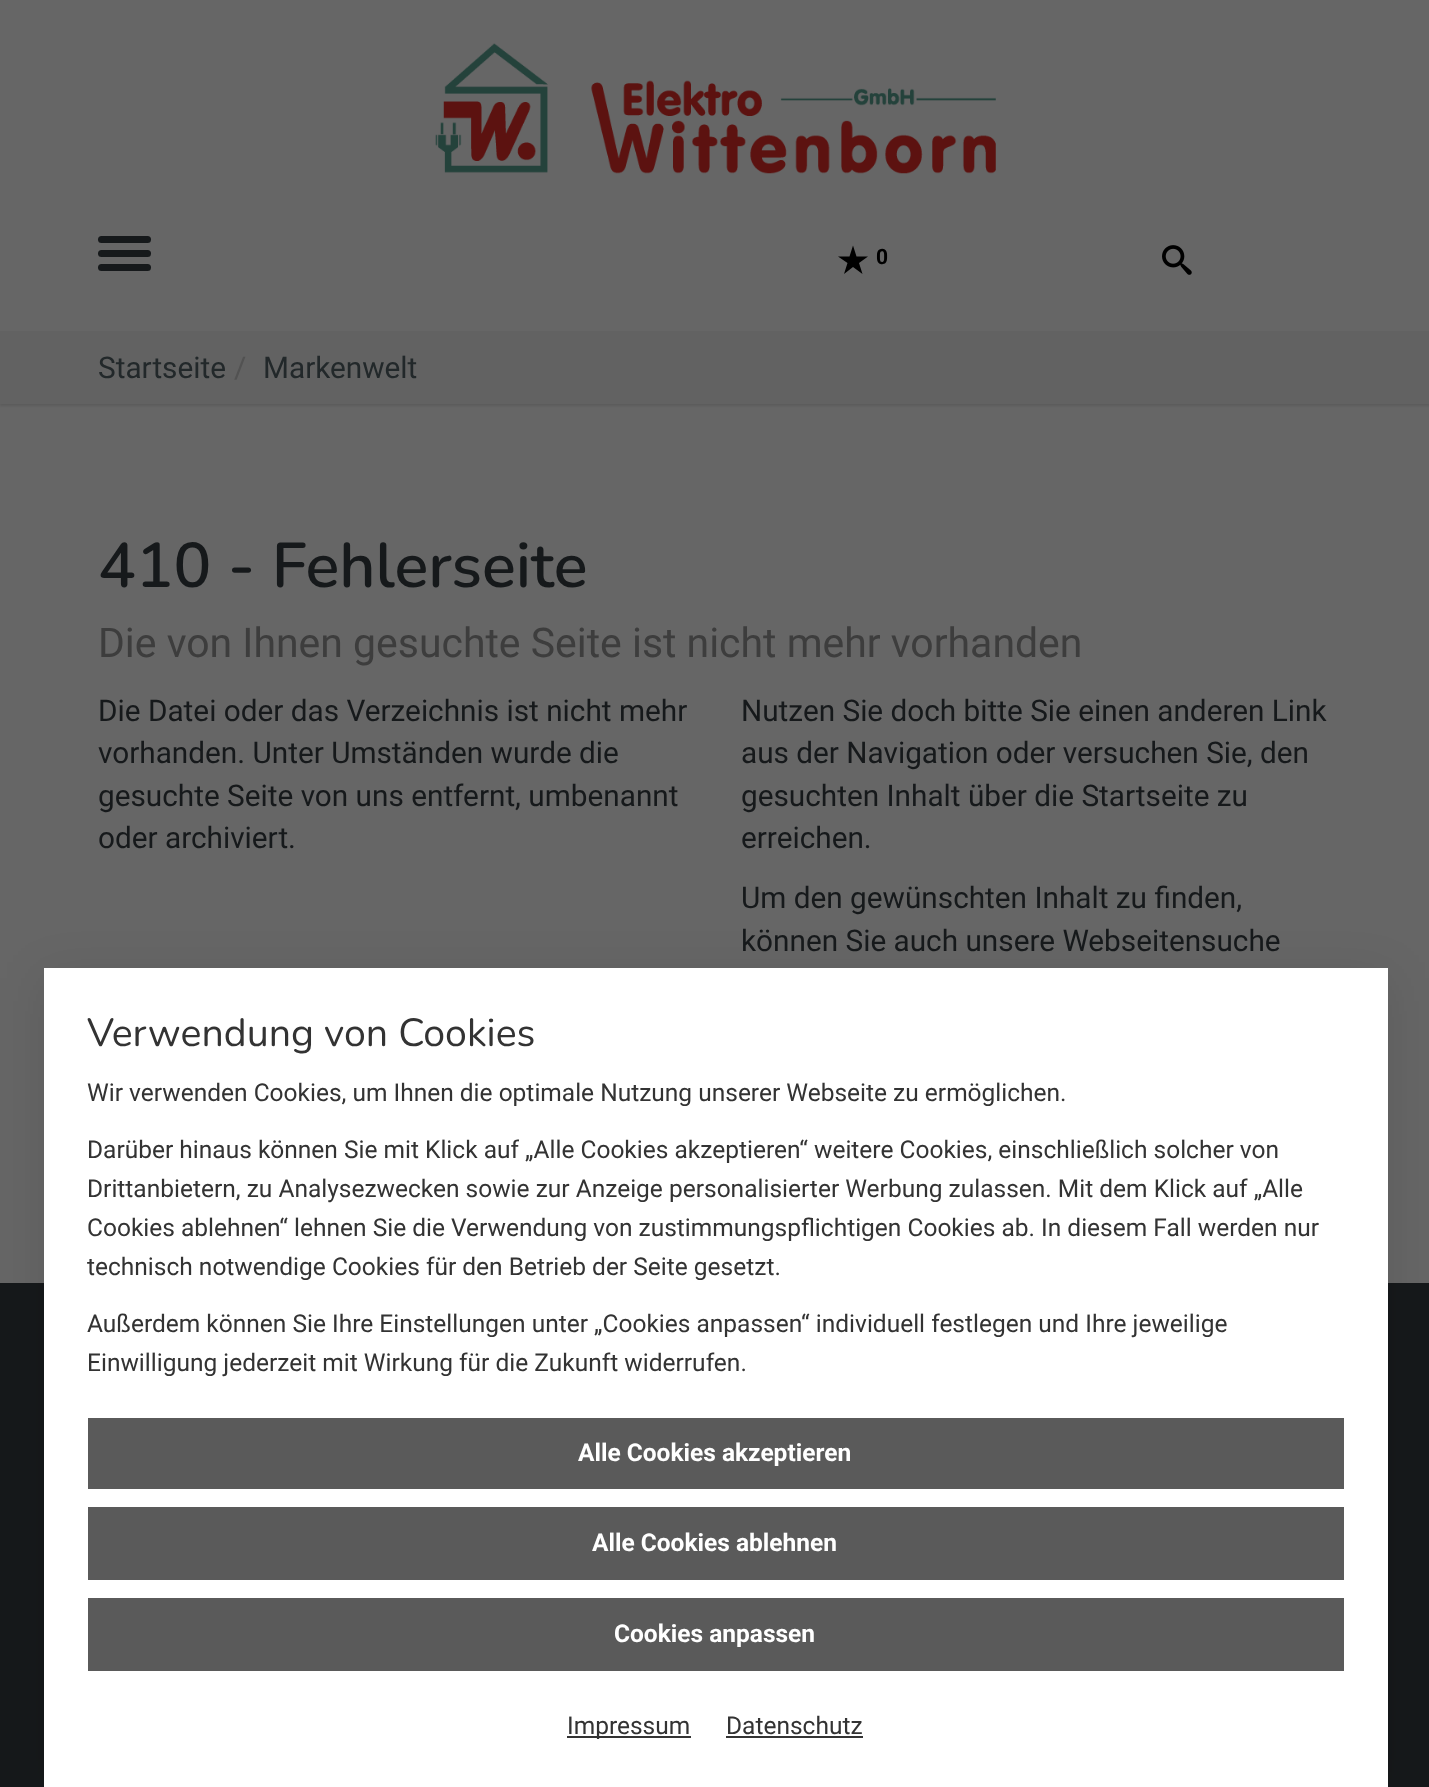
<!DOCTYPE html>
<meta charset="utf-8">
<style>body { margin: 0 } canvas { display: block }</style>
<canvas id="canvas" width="1429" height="1787"></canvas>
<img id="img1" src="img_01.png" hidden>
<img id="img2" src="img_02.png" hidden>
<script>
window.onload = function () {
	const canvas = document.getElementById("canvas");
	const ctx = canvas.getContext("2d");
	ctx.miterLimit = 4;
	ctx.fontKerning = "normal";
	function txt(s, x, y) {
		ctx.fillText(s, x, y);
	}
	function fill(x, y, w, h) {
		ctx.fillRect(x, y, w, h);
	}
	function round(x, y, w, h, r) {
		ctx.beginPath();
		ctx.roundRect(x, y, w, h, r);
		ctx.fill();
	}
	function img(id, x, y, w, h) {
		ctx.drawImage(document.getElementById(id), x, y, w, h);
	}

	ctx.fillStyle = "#666666";
	fill(0, 0, 1429, 1787);
	img("img1", 435, 43, 561, 131);
	ctx.fillStyle = "#16191B";
	round(98, 236, 53, 7, 3.5);
	round(98, 250, 53, 7, 3.5);
	round(98, 264, 53, 7, 3.5);
	ctx.fillStyle = "#000000";
	ctx.beginPath();
	ctx.moveTo(868, 256.5);
	ctx.lineTo(856.5, 256.5);
	ctx.lineTo(853, 245.5);
	ctx.lineTo(849.5, 256.5);
	ctx.lineTo(838, 256.5);
	ctx.lineTo(847.5, 263);
	ctx.lineTo(844, 274);
	ctx.lineTo(853, 267);
	ctx.lineTo(862.5, 274);
	ctx.lineTo(859, 263);
	ctx.closePath();
	ctx.fill();
	img("img2", 1162, 245, 30, 30);
	ctx.fillStyle = "rgba(0, 0, 0, 0.1)";
	ctx.filter = "blur(1px)";
	ctx.beginPath();
	ctx.rect(0, 333, 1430, 73);
	ctx.fill();
	ctx.filter = "none";
	ctx.fillStyle = "#626262";
	fill(0, 331, 1429, 73);
	ctx.fillStyle = "#16191B";
	fill(0, 1283, 1429, 504);
	ctx.fillStyle = "rgba(0, 0, 0, 0.1)";
	ctx.filter = "blur(24.5px)";
	ctx.beginPath();
	ctx.rect(44, 978, 1344, 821);
	ctx.fill();
	ctx.filter = "none";
	ctx.fillStyle = "#FFFFFF";
	fill(44, 968, 1344, 819);
	ctx.fillStyle = "#5A5A5A";
	fill(88, 1418, 1256, 71);
	fill(88, 1507, 1256, 73);
	fill(88, 1598, 1256, 73);
	ctx.fillStyle = "#333333";
	fill(567, 1736, 124, 2);
	fill(726, 1736, 137, 2);
	ctx.font = "bold 21px Roboto";
	ctx.fillStyle = "#000000";
	txt("0", 876, 264);
	ctx.font = "29.75px Roboto";
	ctx.fillStyle = "#22282A";
	txt("Startseite", 98, 378);
	ctx.fillStyle = "#525252";
	txt("/", 234, 378);
	ctx.fillStyle = "#22282A";
	txt("Markenwelt", 263, 378);
	ctx.font = "600 63px Nunito";
	ctx.fillStyle = "#16191B";
	txt("410 - Fehlerseite", 98, 587);
	ctx.font = "40.95px Roboto";
	ctx.fillStyle = "#3D3D3D";
	txt("Die von Ihnen gesuchte Seite ist nicht mehr vorhanden", 98, 657);
	ctx.font = "29.75px Roboto";
	ctx.fillStyle = "#16191B";
	txt("Die Datei oder das Verzeichnis ist nicht mehr", 98, 721);
	txt("vorhanden. Unter Umständen wurde die", 98, 763);
	txt("gesuchte Seite von uns entfernt, umbenannt", 98, 806);
	txt("oder archiviert.", 98, 848);
	txt("Nutzen Sie doch bitte Sie einen anderen Link", 741, 721);
	txt("aus der Navigation oder versuchen Sie, den", 741, 763);
	txt("gesuchten Inhalt über die Startseite zu", 741, 806);
	txt("erreichen.", 741, 848);
	txt("Um den gewünschten Inhalt zu finden,", 741, 908);
	txt("können Sie auch unsere Webseitensuche", 741, 951);
	ctx.font = "39.25px Nunito";
	ctx.fillStyle = "#333333";
	txt("Verwendung von Cookies", 87, 1046);
	ctx.font = "24.5px Roboto";
	txt("Wir verwenden Cookies, um Ihnen die optimale Nutzung unserer Webseite zu ermöglichen.", 87, 1101);
	txt("Darüber hinaus können Sie mit Klick auf „Alle Cookies akzeptieren“ weitere Cookies, einschließlich solcher von", 87, 1158);
	txt("Drittanbietern, zu Analysezwecken sowie zur Anzeige personalisierter Werbung zulassen. Mit dem Klick auf „Alle", 87, 1197);
	txt("Cookies ablehnen“ lehnen Sie die Verwendung von zustimmungspflichtigen Cookies ab. In diesem Fall werden nur", 87, 1236);
	txt("technisch notwendige Cookies für den Betrieb der Seite gesetzt.", 87, 1275);
	txt("Außerdem können Sie Ihre Einstellungen unter „Cookies anpassen“ individuell festlegen und Ihre jeweilige", 87, 1332);
	txt("Einwilligung jederzeit mit Wirkung für die Zukunft widerrufen.", 87, 1371);
	ctx.font = "bold 24.5px Roboto";
	ctx.fillStyle = "#FFFFFF";
	txt("Alle Cookies akzeptieren", 578, 1461);
	txt("Alle Cookies ablehnen", 592, 1551);
	txt("Cookies anpassen", 614, 1642);
	ctx.font = "24.5px Roboto";
	ctx.fillStyle = "#333333";
	txt("Impressum", 567, 1734);
	txt("Datenschutz", 726, 1734);
};
</script>
